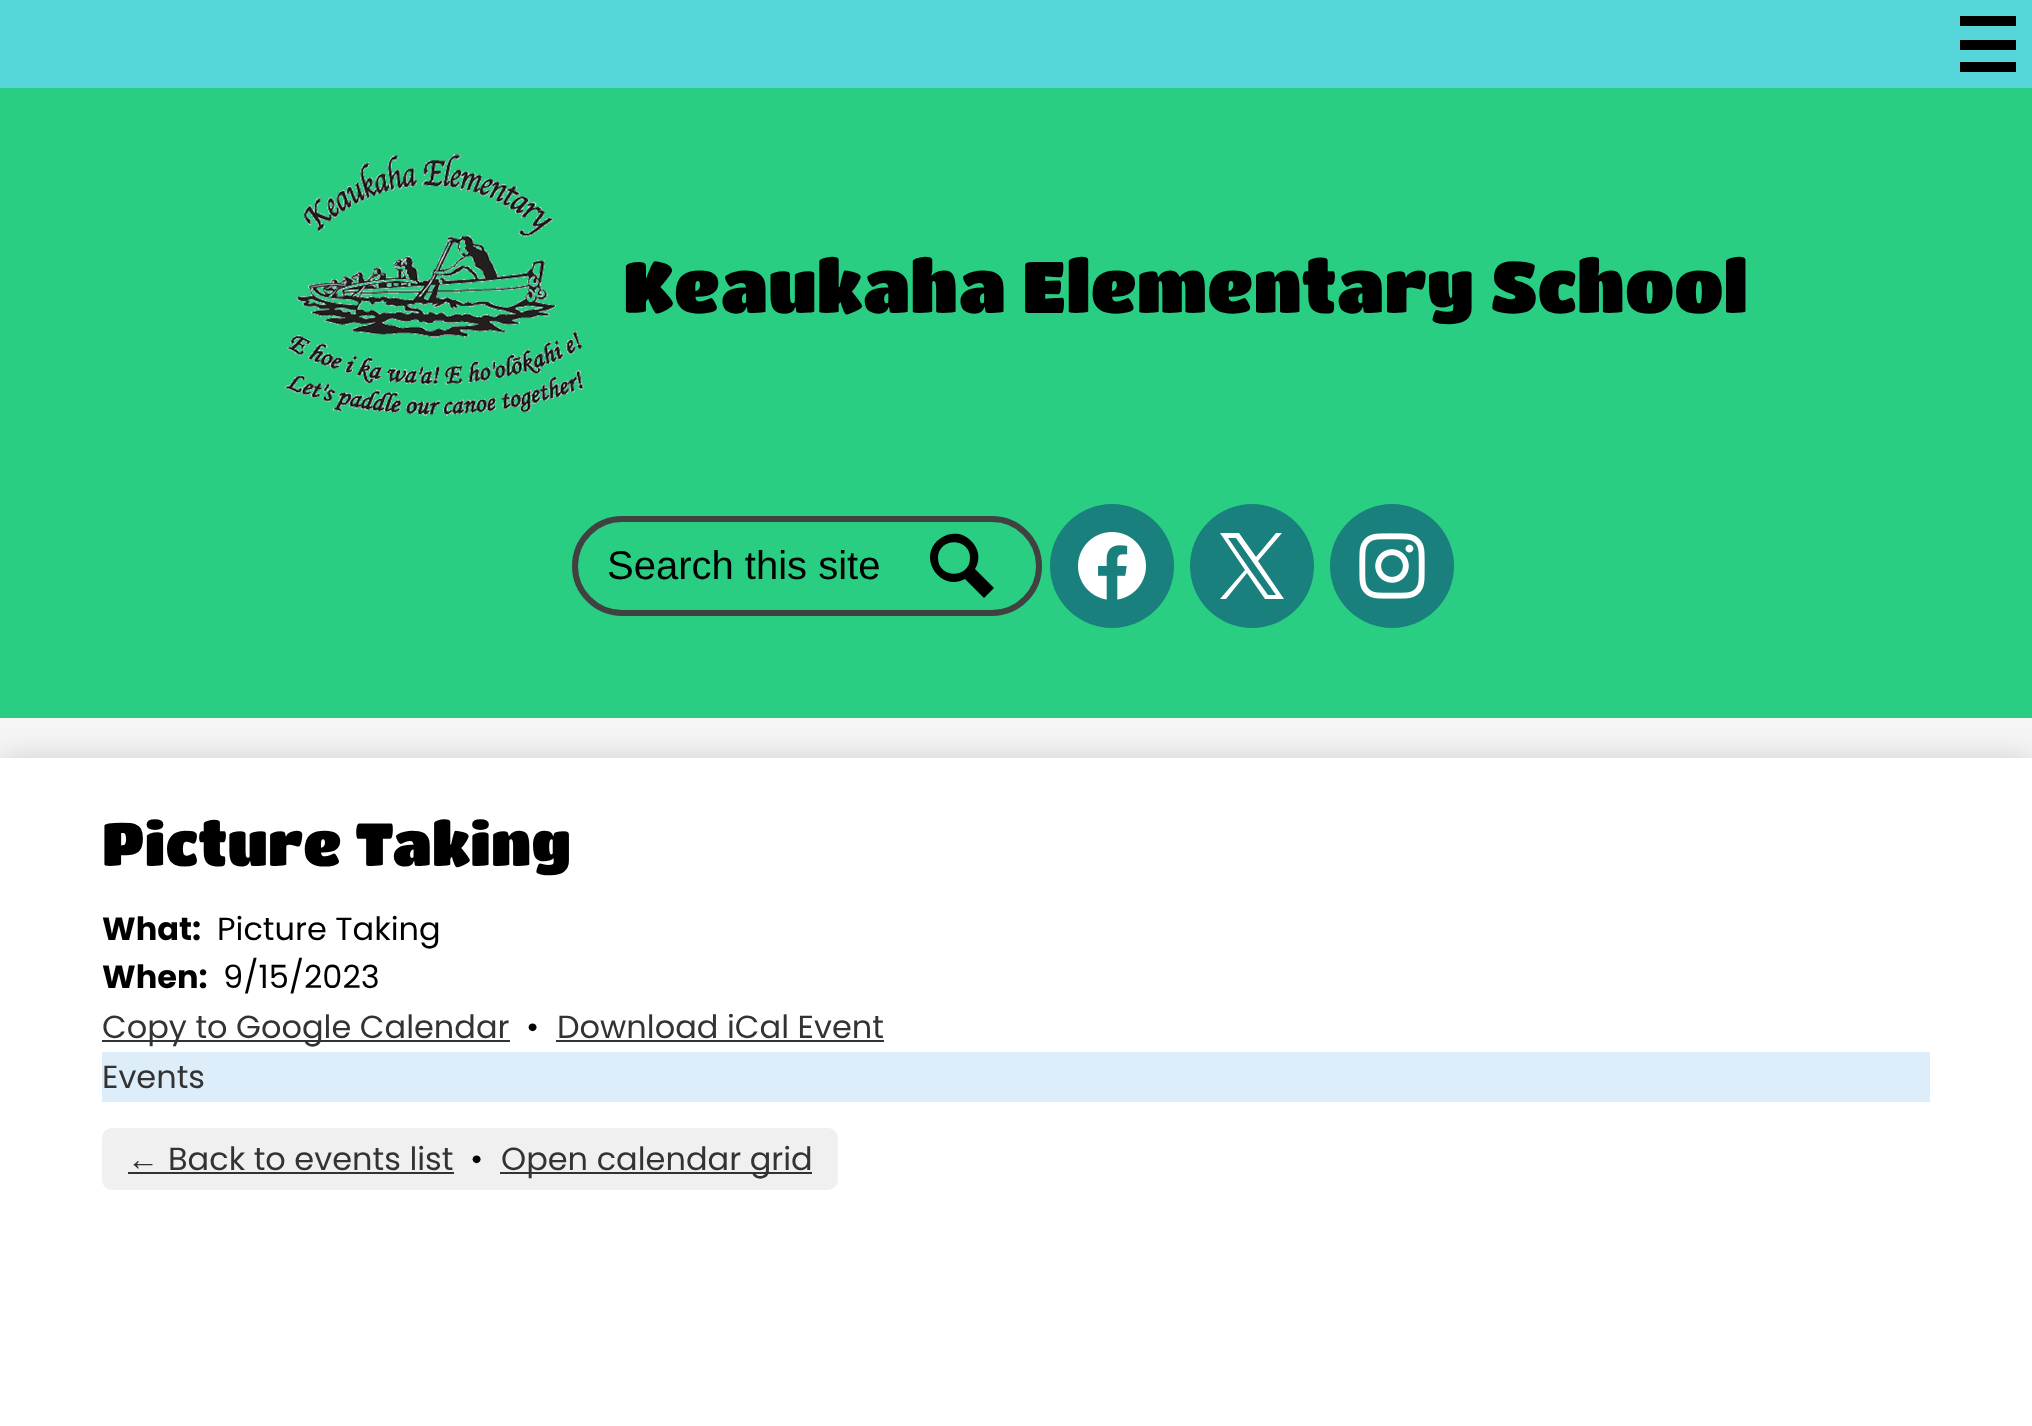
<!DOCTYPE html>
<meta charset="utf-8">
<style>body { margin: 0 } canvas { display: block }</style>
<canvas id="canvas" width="2032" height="1426"></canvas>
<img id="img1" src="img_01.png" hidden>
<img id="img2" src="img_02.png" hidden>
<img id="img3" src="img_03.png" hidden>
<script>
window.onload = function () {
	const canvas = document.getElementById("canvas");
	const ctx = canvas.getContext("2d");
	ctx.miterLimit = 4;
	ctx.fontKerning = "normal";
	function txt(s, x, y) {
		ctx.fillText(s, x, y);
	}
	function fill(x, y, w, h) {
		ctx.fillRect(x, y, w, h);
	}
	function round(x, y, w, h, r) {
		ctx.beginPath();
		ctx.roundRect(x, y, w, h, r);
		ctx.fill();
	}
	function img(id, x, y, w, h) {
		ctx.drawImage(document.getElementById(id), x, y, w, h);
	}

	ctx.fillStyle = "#F5F5F5";
	fill(0, 0, 2032, 1426);
	ctx.fillStyle = "rgba(0, 0, 0, 0.15)";
	ctx.filter = "blur(15px)";
	ctx.beginPath();
	ctx.rect(0, 758, 2032, 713);
	ctx.fill();
	ctx.filter = "none";
	ctx.fillStyle = "#2ACE82";
	fill(0, 88, 2032, 630);
	ctx.fillStyle = "#56D6D9";
	fill(0, 0, 2032, 88);
	ctx.fillStyle = "#000000";
	fill(1960, 16, 56, 10);
	fill(1960, 40, 56, 10);
	fill(1960, 62, 56, 10);
	img("img1", 284, 154, 300, 262);
	ctx.beginPath();
	ctx.roundRect(575, 519, 464, 94, 47);
	ctx.strokeStyle = "#414141";
	ctx.lineWidth = 6;
	ctx.stroke();
	ctx.beginPath();
	ctx.moveTo(994, 588);
	ctx.lineTo(975, 569);
	ctx.bezierCurveTo(978, 564, 979, 559, 978, 553);
	ctx.bezierCurveTo(976, 544, 968, 536, 959, 534);
	ctx.bezierCurveTo(953, 533, 946, 534, 941, 538);
	ctx.bezierCurveTo(915, 555, 940, 593, 965, 579);
	ctx.lineTo(984, 598);
	ctx.closePath();
	ctx.moveTo(938, 558);
	ctx.bezierCurveTo(938, 537, 970, 537, 970, 558);
	ctx.bezierCurveTo(970, 579, 938, 579, 938, 558);
	ctx.closePath();
	ctx.fill();
	ctx.fillStyle = "#19807E";
	ctx.beginPath();
	ctx.arc(1112, 566, 62, 0, Math.PI * 2);
	ctx.fill();
	img("img2", 1078, 532, 68, 68);
	ctx.beginPath();
	ctx.arc(1252, 566, 62, 0, Math.PI * 2);
	ctx.fill();
	ctx.fillStyle = "#FFFFFF";
	ctx.beginPath();
	ctx.moveTo(1258, 561);
	ctx.lineTo(1282, 533);
	ctx.lineTo(1276, 533);
	ctx.lineTo(1256, 557);
	ctx.lineTo(1239, 533);
	ctx.lineTo(1220, 533);
	ctx.lineTo(1245, 570);
	ctx.lineTo(1220, 599);
	ctx.lineTo(1226, 599);
	ctx.lineTo(1247, 573);
	ctx.lineTo(1265, 599);
	ctx.lineTo(1284, 599);
	ctx.closePath();
	ctx.moveTo(1250, 570);
	ctx.lineTo(1228, 538);
	ctx.lineTo(1236, 538);
	ctx.lineTo(1276, 595);
	ctx.lineTo(1268, 595);
	ctx.closePath();
	ctx.fill();
	ctx.fillStyle = "#19807E";
	ctx.beginPath();
	ctx.arc(1392, 566, 62, 0, Math.PI * 2);
	ctx.fill();
	img("img3", 1359, 533, 66, 66);
	ctx.fillStyle = "#FFFFFF";
	fill(0, 758, 2032, 668);
	ctx.fillStyle = "#333333";
	fill(102, 1040, 408, 2);
	fill(556, 1040, 328, 2);
	ctx.fillStyle = "#DDEEFA";
	fill(102, 1052, 1828, 50);
	ctx.fillStyle = "#F0F0F0";
	round(102, 1128, 736, 62, 10);
	ctx.fillStyle = "#333333";
	fill(128, 1172, 326, 2);
	fill(500, 1172, 312, 2);
	ctx.font = "72px Titan One";
	ctx.fillStyle = "#000000";
	txt("Keaukaha Elementary School", 623, 313);
	ctx.font = "40px Liberation Sans";
	txt("Search this site", 607, 579);
	ctx.font = "60px Titan One";
	txt("Picture Taking", 102, 866);
	ctx.font = "bold 32px Poppins";
	txt("What:", 102, 940);
	ctx.font = "32px Poppins";
	txt("Picture Taking", 217, 940);
	ctx.font = "bold 32px Poppins";
	txt("When:", 102, 988);
	ctx.font = "32px Poppins";
	txt("9/15/2023", 223, 988);
	ctx.fillStyle = "#333333";
	txt("Copy to Google Calendar", 102, 1038);
	ctx.fillStyle = "#000000";
	txt("•", 526, 1038);
	ctx.fillStyle = "#333333";
	txt("Download iCal Event", 557, 1038);
	txt("Events", 102, 1088);
	ctx.font = "32px Liberation Sans";
	txt("←", 127, 1170);
	ctx.font = "32px Poppins";
	txt("Back to events list", 168, 1170);
	ctx.fillStyle = "#000000";
	txt("•", 470, 1170);
	ctx.fillStyle = "#333333";
	txt("Open calendar grid", 501, 1170);
};
</script>
